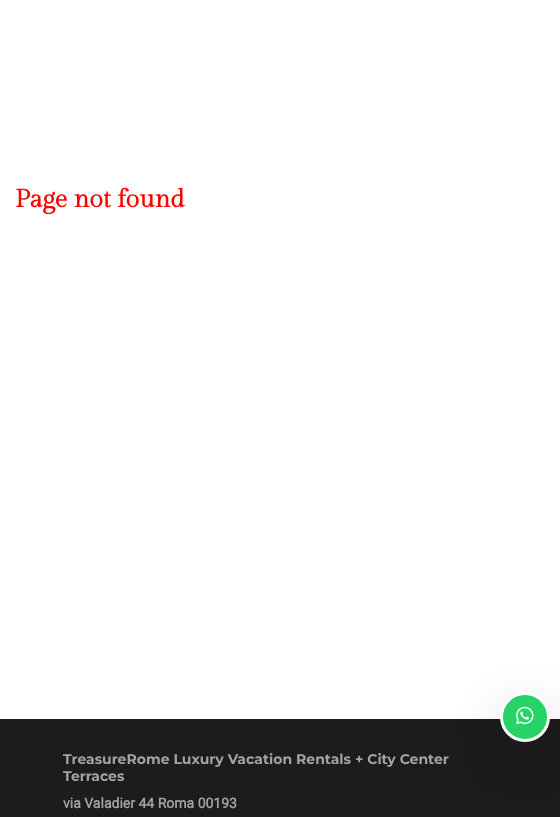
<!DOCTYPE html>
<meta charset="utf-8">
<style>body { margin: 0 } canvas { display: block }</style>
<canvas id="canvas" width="560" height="817"></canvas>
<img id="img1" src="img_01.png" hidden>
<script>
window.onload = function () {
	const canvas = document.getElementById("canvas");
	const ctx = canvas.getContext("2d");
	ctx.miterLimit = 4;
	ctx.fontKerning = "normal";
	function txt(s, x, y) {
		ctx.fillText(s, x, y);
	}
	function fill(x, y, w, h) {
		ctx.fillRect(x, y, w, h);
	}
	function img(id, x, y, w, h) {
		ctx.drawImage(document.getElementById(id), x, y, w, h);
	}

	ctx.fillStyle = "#FFFFFF";
	fill(0, 0, 560, 817);
	ctx.fillStyle = "#1C1C1C";
	fill(0, 719, 560, 98);
	ctx.fillStyle = "rgba(0, 0, 0, 0.18)";
	ctx.filter = "blur(24px)";
	ctx.beginPath();
	ctx.roundRect(500, 708, 50, 50, 25);
	ctx.fill();
	ctx.filter = "none";
	ctx.fillStyle = "#25D366";
	ctx.beginPath();
	ctx.arc(525, 717, 23.5, 0, Math.PI * 2);
	ctx.fill();
	ctx.strokeStyle = "#FFFFFF";
	ctx.lineWidth = 3;
	ctx.stroke();
	img("img1", 516, 706, 18, 19);
	ctx.font = "bold 25px Gilda Display";
	ctx.fillStyle = "#FF0000";
	txt("Page not found", 15, 207);
	ctx.font = "bold 14px Montserrat";
	ctx.fillStyle = "#A3A3A4";
	txt("TreasureRome Luxury Vacation Rentals + City Center", 63, 764);
	txt("Terraces", 63, 781);
	ctx.font = "bold 14px Roboto";
	txt("via Valadier 44 Roma 00193", 63, 808);
};
</script>
